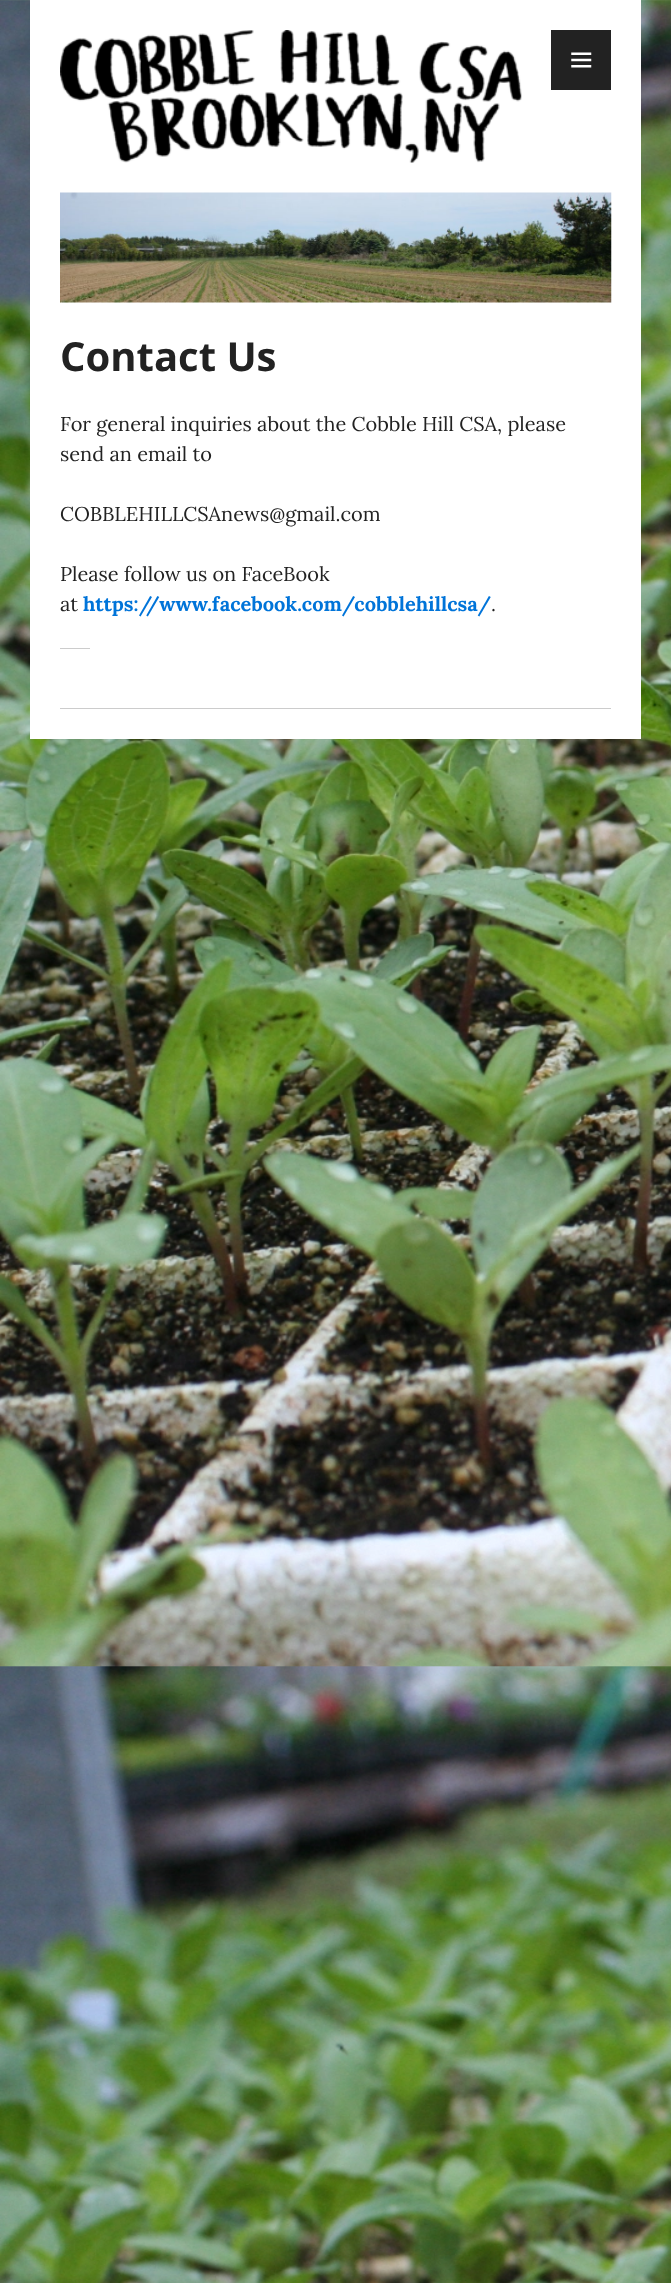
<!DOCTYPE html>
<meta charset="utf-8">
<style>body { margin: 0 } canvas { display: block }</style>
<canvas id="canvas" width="671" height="2283"></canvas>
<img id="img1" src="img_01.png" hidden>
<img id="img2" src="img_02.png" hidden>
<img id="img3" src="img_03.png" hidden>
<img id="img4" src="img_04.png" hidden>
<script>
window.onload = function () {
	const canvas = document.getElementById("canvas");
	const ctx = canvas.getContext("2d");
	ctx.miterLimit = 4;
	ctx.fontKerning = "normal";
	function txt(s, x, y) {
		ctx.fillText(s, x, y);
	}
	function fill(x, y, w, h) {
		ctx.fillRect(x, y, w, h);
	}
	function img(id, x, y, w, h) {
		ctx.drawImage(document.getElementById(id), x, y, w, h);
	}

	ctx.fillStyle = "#FFFFFF";
	fill(0, 0, 671, 2283);
	img("img1", 0, 0, 671, 2283);
	fill(30, 0, 611, 739);
	img("img2", 60, 30, 462, 133);
	ctx.fillStyle = "#222222";
	fill(551, 30, 60, 60);
	img("img3", 571, 52, 21, 16);
	img("img4", 60, 192, 552, 111);
	ctx.fillStyle = "#CCCCCC";
	fill(60, 708, 551, 1);
	fill(60, 648, 30, 1);
	ctx.font = "bold 40px Open Sans";
	ctx.fillStyle = "#222222";
	txt("Contact Us", 60, 371);
	ctx.font = "20px Lora";
	txt("For general inquiries about the Cobble Hill CSA, please", 60, 431);
	txt("send an email to", 60, 461);
	txt("COBBLEHILLCSAnews@gmail.com", 60, 521);
	txt("Please follow us on FaceBook", 60, 581);
	txt("at", 60, 611);
	ctx.font = "bold 20px Lora";
	ctx.fillStyle = "#0074D9";
	txt("https://www.facebook.com/cobblehillcsa/", 83, 611);
	ctx.font = "20px Lora";
	ctx.fillStyle = "#222222";
	txt(".", 491, 611);
};
</script>
